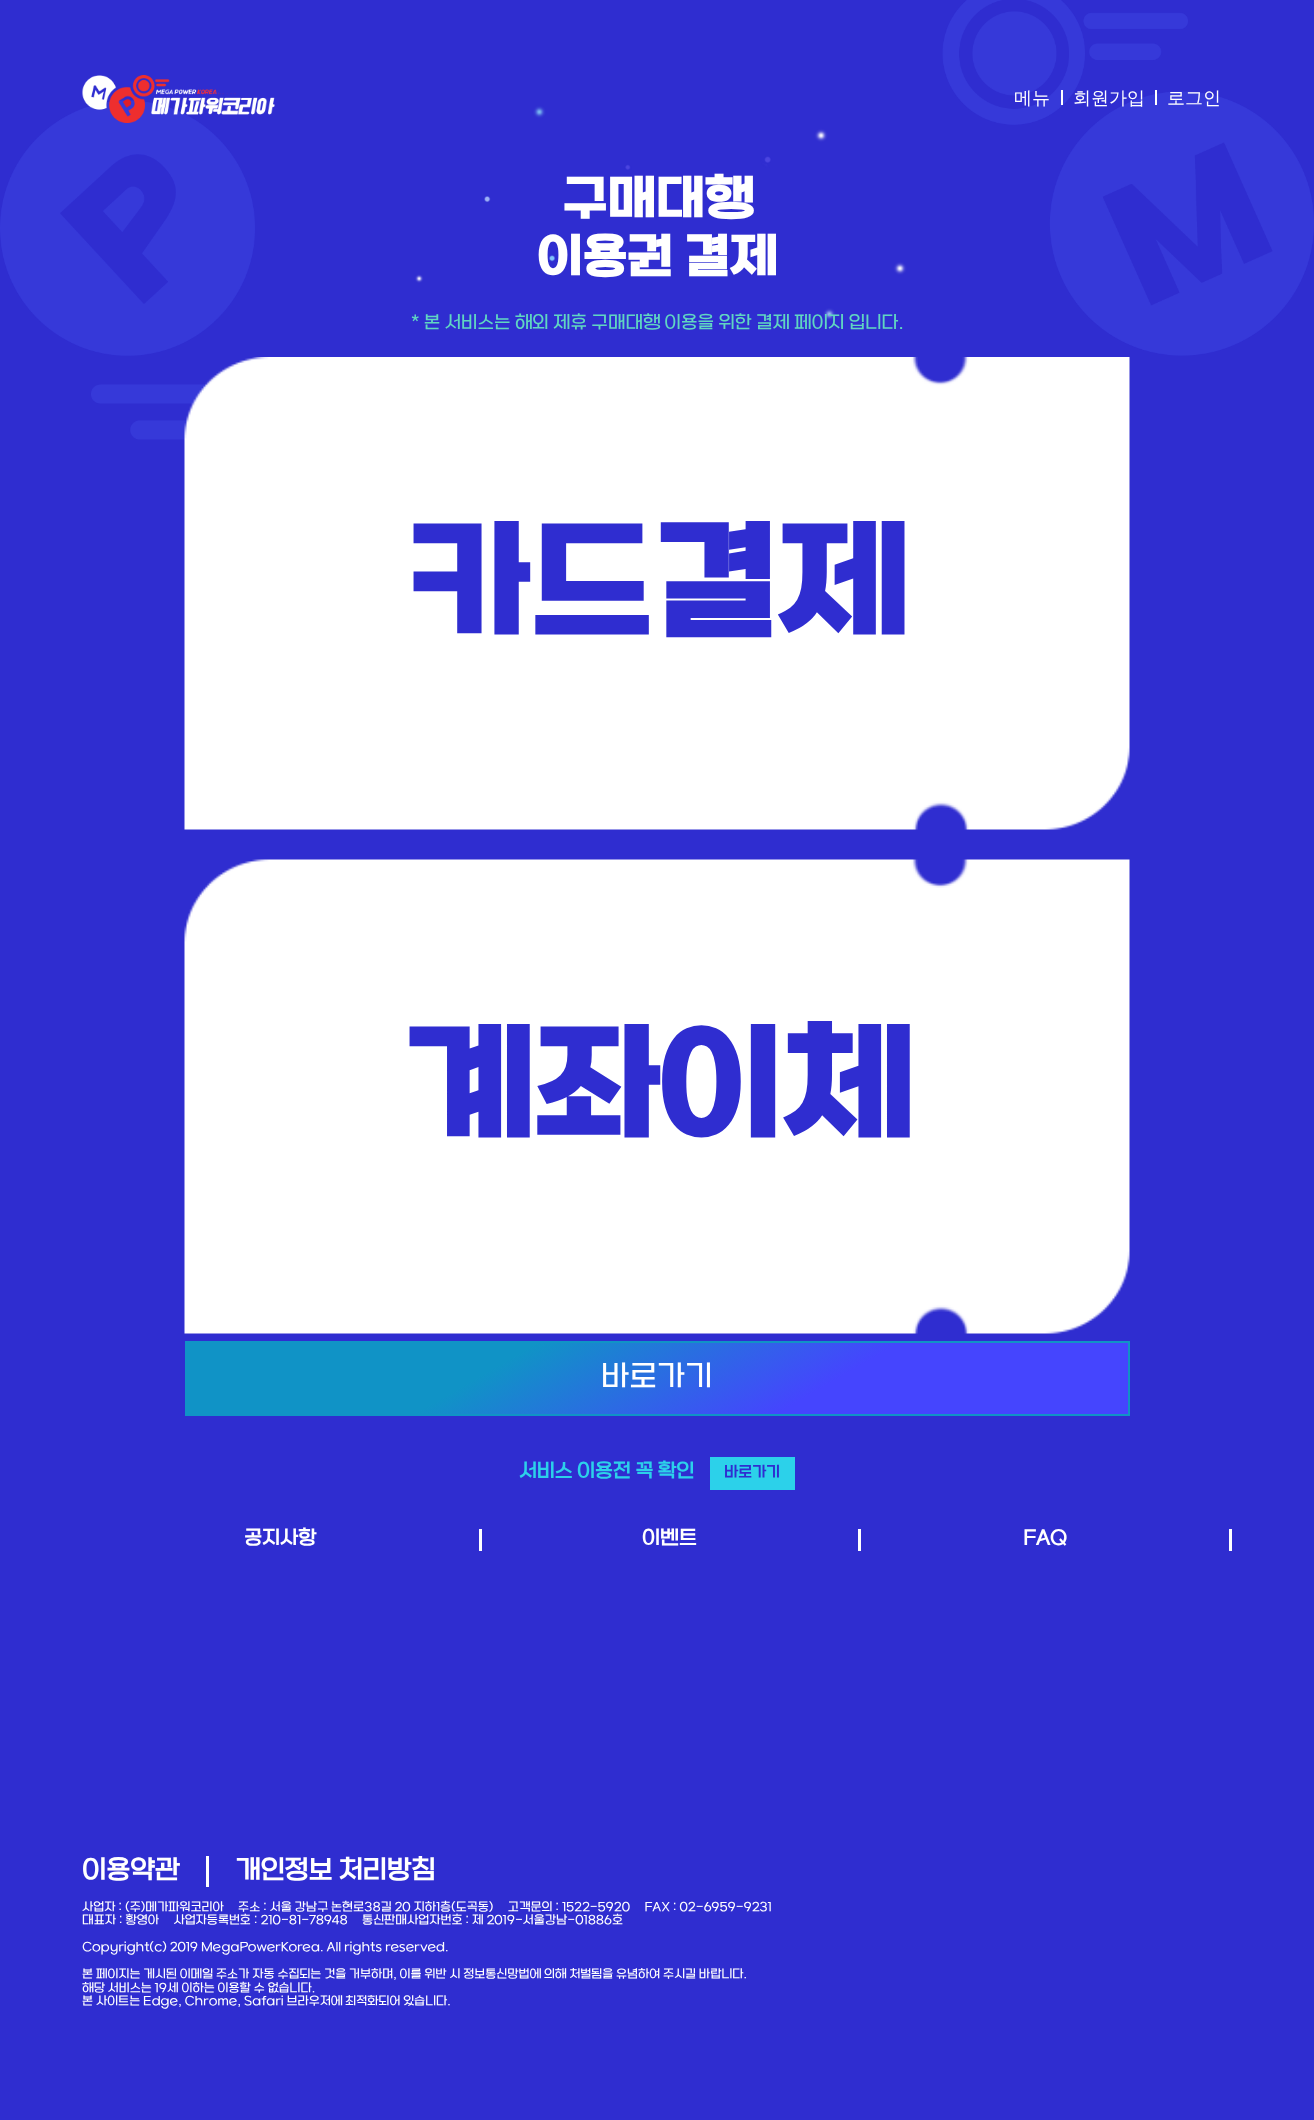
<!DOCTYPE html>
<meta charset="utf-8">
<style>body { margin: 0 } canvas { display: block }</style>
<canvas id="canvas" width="1314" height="2120"></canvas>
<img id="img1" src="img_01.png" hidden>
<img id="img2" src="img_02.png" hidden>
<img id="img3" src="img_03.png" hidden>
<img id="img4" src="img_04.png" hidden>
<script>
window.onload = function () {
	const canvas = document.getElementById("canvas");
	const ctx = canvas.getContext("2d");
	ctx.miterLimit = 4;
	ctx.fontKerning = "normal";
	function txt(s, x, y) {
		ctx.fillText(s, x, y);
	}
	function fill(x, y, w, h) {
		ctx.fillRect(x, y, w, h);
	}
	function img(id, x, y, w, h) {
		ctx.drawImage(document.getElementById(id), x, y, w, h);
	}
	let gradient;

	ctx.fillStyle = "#2F2DD0";
	fill(0, 0, 1314, 2120);
	img("img1", 0, 0, 1314, 440);
	img("img2", 82, 75, 193, 48);
	ctx.fillStyle = "#FFFFFF";
	fill(1061, 90, 2, 15);
	fill(1155, 90, 2, 15);
	img("img3", 184, 357, 946, 473);
	img("img4", 184, 859, 946, 475);
	gradient = ctx.createLinearGradient(524, 1148, 790, 1609);
	gradient.addColorStop(0, "#1093C6");
	gradient.addColorStop(0.33, "#1093C6");
	gradient.addColorStop(0.67, "#4545FE");
	gradient.addColorStop(1, "#4545FE");
	ctx.fillStyle = gradient;
	fill(187, 1343, 941, 71);
	ctx.strokeStyle = "#1093C6";
	ctx.lineWidth = 2;
	ctx.strokeRect(186, 1342, 943, 73);
	ctx.fillStyle = "#2CD1EA";
	fill(710, 1457, 85, 33);
	ctx.fillStyle = "#FFFFFF";
	fill(479, 1529, 3, 22);
	fill(858, 1529, 3, 22);
	fill(1229, 1529, 3, 22);
	fill(206, 1856, 3, 31);
	ctx.font = "500 18px WenQuanYi Zen Hei";
	txt("메뉴", 1014, 104);
	txt("회원가입", 1073, 104);
	txt("로그인", 1167, 104);
	ctx.font = "bold 48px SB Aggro";
	txt("구매대행", 562, 212);
	txt("이용권 결제", 537, 270);
	ctx.font = "18px SB Aggro";
	ctx.fillStyle = "#60D6C2";
	txt("* 본 서비스는 해외 제휴 구매대행 이용을 위한 결제 페이지 입니다.", 411, 327);
	ctx.font = "bold 131.5px SB Aggro";
	ctx.fillStyle = "#2F2DD0";
	txt("카드결제", 405, 620);
	txt("계좌이체", 401, 1123);
	ctx.font = "30px SB Aggro";
	ctx.fillStyle = "#FFFFFF";
	txt("바로가기", 601, 1384);
	ctx.font = "bold 19.5px 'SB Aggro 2'";
	ctx.fillStyle = "#2CD1EA";
	txt("서비스 이용전 꼭 확인", 519, 1476);
	ctx.font = "bold 15px 'SB Aggro 2'";
	ctx.fillStyle = "#2F2DD0";
	txt("바로가기", 724, 1476);
	ctx.font = "bold 19.5px 'SB Aggro 2'";
	ctx.fillStyle = "#FFFFFF";
	txt("공지사항", 244, 1543);
	txt("이벤트", 642, 1543);
	txt("FAQ", 1023, 1543);
	ctx.font = "bold 26.25px 'SB Aggro 2'";
	txt("이용약관", 82, 1877);
	txt("개인정보 처리방침", 235, 1877);
	ctx.font = "12px SB Aggro";
	txt("사업자 : (주)메가파워코리아     주소 : 서울 강남구 논현로38길 20 지하1층(도곡동)     고객문의 : 1522-5920     FAX : 02-6959-9231", 82, 1910);
	txt("대표자 : 황영아     사업자등록번호 : 210-81-78948     통신판매사업자번호 : 제 2019-서울강남-01886호", 82, 1923);
	txt("Copyright(c) 2019 MegaPowerKorea. All rights reserved.", 82, 1950);
	txt("본 페이지는 게시된 이메일 주소가 자동 수집되는 것을 거부하며, 이를 위반 시 정보통신망법에 의해 처벌됨을 유념하여 주시길 바랍니다.", 82, 1977);
	txt("해당 서비스는 19세 이하는 이용할 수 없습니다.", 82, 1991);
	txt("본 사이트는 Edge, Chrome, Safari 브라우저에 최적화되어 있습니다.", 82, 2004);
};
</script>
